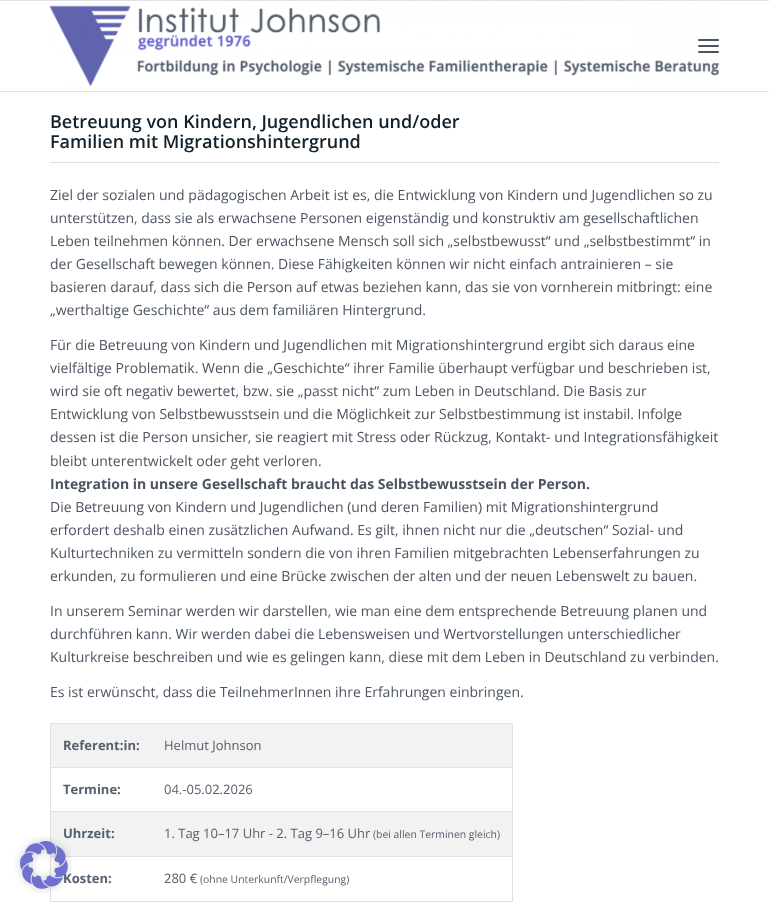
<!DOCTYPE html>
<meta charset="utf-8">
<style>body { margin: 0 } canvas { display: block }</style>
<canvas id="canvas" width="769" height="909"></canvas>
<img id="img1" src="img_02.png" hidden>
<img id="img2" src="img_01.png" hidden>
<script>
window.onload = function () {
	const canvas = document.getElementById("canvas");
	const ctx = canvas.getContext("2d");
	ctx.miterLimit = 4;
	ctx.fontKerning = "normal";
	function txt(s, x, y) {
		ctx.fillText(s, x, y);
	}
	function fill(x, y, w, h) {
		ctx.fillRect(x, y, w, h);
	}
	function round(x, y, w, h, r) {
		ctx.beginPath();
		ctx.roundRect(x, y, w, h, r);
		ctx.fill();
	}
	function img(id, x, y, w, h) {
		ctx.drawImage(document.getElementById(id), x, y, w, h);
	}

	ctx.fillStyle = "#FFFFFF";
	fill(0, 0, 769, 909);
	ctx.fillStyle = "#E1E1E1";
	fill(0, 0, 769, 1);
	fill(0, 91, 769, 1);
	img("img1", 50, 5, 669, 82);
	ctx.fillStyle = "#4B5461";
	round(698, 45, 21, 2, 1);
	round(698, 39, 21, 2, 1);
	round(698, 51, 21, 2, 1);
	ctx.fillStyle = "#DDDDDD";
	fill(50, 162, 669, 1);
	ctx.fillStyle = "#F2F2F2";
	fill(51, 724, 461, 43);
	ctx.fillStyle = "#E1E1E1";
	fill(50, 723, 463, 1);
	fill(50, 767, 463, 1);
	fill(50, 811, 463, 1);
	fill(50, 856, 463, 1);
	fill(512, 856, 1, 46);
	fill(512, 811, 1, 46);
	fill(512, 767, 1, 45);
	fill(512, 723, 1, 45);
	fill(50, 901, 463, 1);
	fill(50, 856, 1, 46);
	fill(50, 811, 1, 46);
	fill(50, 767, 1, 45);
	fill(50, 723, 1, 45);
	ctx.fillStyle = "#F2F2F2";
	fill(51, 812, 461, 44);
	ctx.font = "600 18px Open Sans";
	ctx.fillStyle = "#11202A";
	txt("Betreuung von Kindern, Jugendlichen und/oder", 50, 128);
	txt("Familien mit Migrationshintergrund", 50, 148);
	ctx.font = "14px Open Sans";
	ctx.fillStyle = "#4B5461";
	txt("Ziel der sozialen und pädagogischen Arbeit ist es, die Entwicklung von Kindern und Jugendlichen so zu", 50, 200);
	txt("unterstützen, dass sie als erwachsene Personen eigenständig und konstruktiv am gesellschaftlichen", 50, 223);
	txt("Leben teilnehmen können. Der erwachsene Mensch soll sich „selbstbewusst“ und „selbstbestimmt“ in", 50, 246);
	txt("der Gesellschaft bewegen können. Diese Fähigkeiten können wir nicht einfach antrainieren – sie", 50, 269);
	txt("basieren darauf, dass sich die Person auf etwas beziehen kann, das sie von vornherein mitbringt: eine", 50, 292);
	txt("„werthaltige Geschichte“ aus dem familiären Hintergrund.", 50, 315);
	txt("Für die Betreuung von Kindern und Jugendlichen mit Migrationshintergrund ergibt sich daraus eine", 50, 350);
	txt("vielfältige Problematik. Wenn die „Geschichte“ ihrer Familie überhaupt verfügbar und beschrieben ist,", 50, 373);
	txt("wird sie oft negativ bewertet, bzw. sie „passt nicht“ zum Leben in Deutschland. Die Basis zur", 50, 396);
	txt("Entwicklung von Selbstbewusstsein und die Möglichkeit zur Selbstbestimmung ist instabil. Infolge", 50, 419);
	txt("dessen ist die Person unsicher, sie reagiert mit Stress oder Rückzug, Kontakt- und Integrationsfähigkeit", 50, 442);
	txt("bleibt unterentwickelt oder geht verloren.", 50, 466);
	ctx.font = "bold 14px Open Sans";
	txt("Integration in unsere Gesellschaft braucht das Selbstbewusstsein der Person.", 50, 489);
	ctx.font = "14px Open Sans";
	txt("Die Betreuung von Kindern und Jugendlichen (und deren Familien) mit Migrationshintergrund", 50, 512);
	txt("erfordert deshalb einen zusätzlichen Aufwand. Es gilt, ihnen nicht nur die „deutschen“ Sozial- und", 50, 535);
	txt("Kulturtechniken zu vermitteln sondern die von ihren Familien mitgebrachten Lebenserfahrungen zu", 50, 558);
	txt("erkunden, zu formulieren und eine Brücke zwischen der alten und der neuen Lebenswelt zu bauen.", 50, 581);
	txt("In unserem Seminar werden wir darstellen, wie man eine dem entsprechende Betreuung planen und", 50, 616);
	txt("durchführen kann. Wir werden dabei die Lebensweisen und Wertvorstellungen unterschiedlicher", 50, 639);
	txt("Kulturkreise beschreiben und wie es gelingen kann, diese mit dem Leben in Deutschland zu verbinden.", 50, 662);
	txt("Es ist erwünscht, dass die TeilnehmerInnen ihre Erfahrungen einbringen.", 50, 697);
	ctx.font = "bold 13px Open Sans";
	ctx.fillStyle = "#55606E";
	txt("Referent:in:", 63, 750);
	ctx.font = "13px Open Sans";
	txt("Helmut Johnson", 164, 750);
	ctx.font = "bold 13px Open Sans";
	txt("Termine:", 63, 794);
	ctx.font = "13px Open Sans";
	txt("04.-05.02.2026", 164, 794);
	ctx.font = "bold 13px Open Sans";
	txt("Uhrzeit:", 63, 838);
	ctx.font = "13px Open Sans";
	txt("1. Tag 10–17 Uhr - 2. Tag 9–16 Uhr", 164, 838);
	ctx.font = "10.4px Open Sans";
	txt("(bei allen Terminen gleich)", 373, 838);
	ctx.font = "bold 13px Open Sans";
	txt("Kosten:", 63, 883);
	img("img2", 15, 836, 57, 57);
	ctx.font = "13px Open Sans";
	txt("280 €", 164, 883);
	ctx.font = "10.4px Open Sans";
	txt("(ohne Unterkunft/Verpflegung)", 200, 883);
};
</script>
